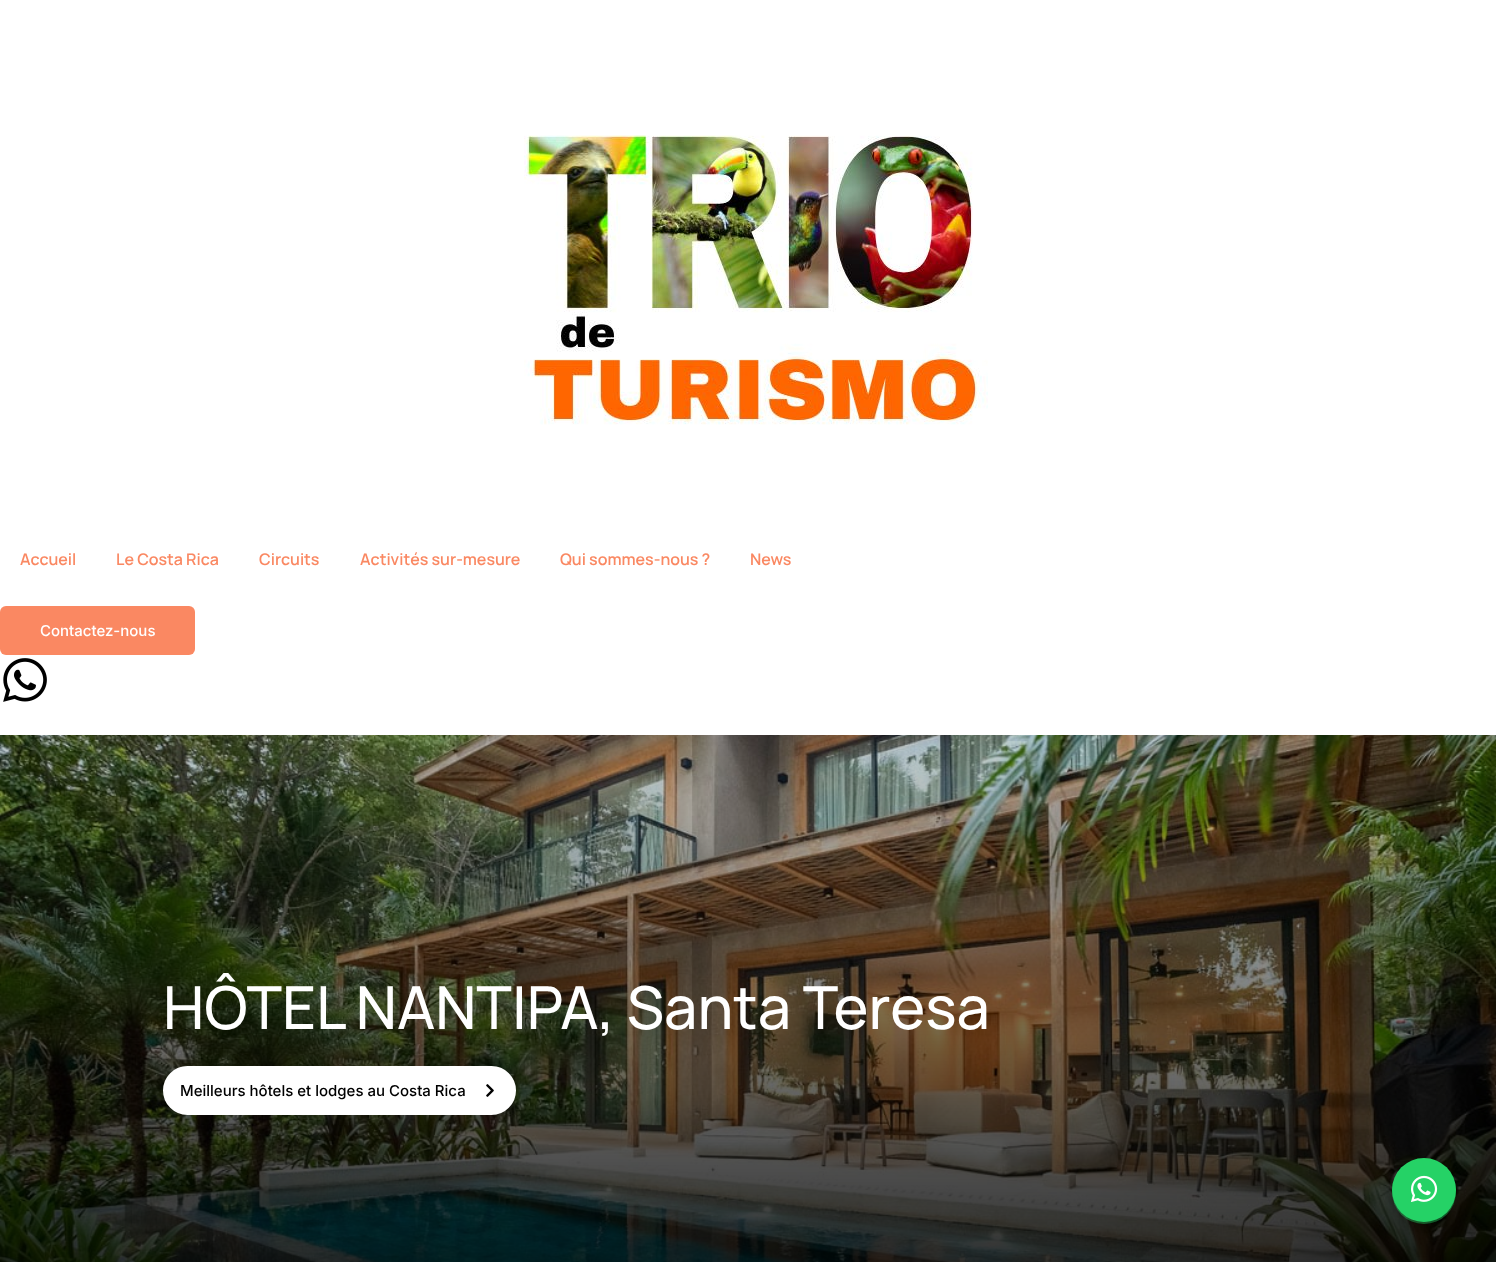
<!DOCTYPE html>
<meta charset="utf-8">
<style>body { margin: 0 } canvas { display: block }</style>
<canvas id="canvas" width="1496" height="1262"></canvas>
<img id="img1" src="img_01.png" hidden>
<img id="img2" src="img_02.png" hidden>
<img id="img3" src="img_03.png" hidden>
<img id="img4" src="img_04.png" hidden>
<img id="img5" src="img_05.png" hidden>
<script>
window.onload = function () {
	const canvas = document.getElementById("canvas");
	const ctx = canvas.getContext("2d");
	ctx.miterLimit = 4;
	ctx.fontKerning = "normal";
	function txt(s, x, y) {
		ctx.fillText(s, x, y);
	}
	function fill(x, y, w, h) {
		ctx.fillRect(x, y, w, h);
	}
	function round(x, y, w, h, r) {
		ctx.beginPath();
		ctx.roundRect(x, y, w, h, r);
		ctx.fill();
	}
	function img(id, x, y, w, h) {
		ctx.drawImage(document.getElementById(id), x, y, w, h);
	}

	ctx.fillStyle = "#FFFFFF";
	fill(0, 0, 1496, 1262);
	img("img1", 524, 135, 464, 290);
	ctx.fillStyle = "#FA8862";
	round(0, 606, 195, 49, 6);
	img("img2", 3, 658, 44, 44);
	img("img3", 0, 735, 1496, 527);
	ctx.fillStyle = "#FFFFFF";
	ctx.beginPath();
	ctx.roundRect(164, 1067, 351, 47, 23.5);
	ctx.fill();
	ctx.strokeStyle = "#FFFFFF";
	ctx.lineWidth = 2;
	ctx.stroke();
	img("img4", 486, 1084, 8, 13);
	ctx.fillStyle = "rgba(0, 0, 0, 0.2)";
	ctx.filter = "blur(4px)";
	ctx.beginPath();
	ctx.roundRect(1392, 1160, 64, 64, 32);
	ctx.fill();
	ctx.filter = "none";
	ctx.fillStyle = "#25D366";
	ctx.beginPath();
	ctx.arc(1424, 1190, 32, 0, Math.PI * 2);
	ctx.fill();
	ctx.fillStyle = "rgba(37, 211, 102, 0.4)";
	ctx.beginPath();
	ctx.arc(1424, 1192, 32, 0, Math.PI * 2);
	ctx.fill();
	img("img5", 1411, 1175, 27, 27);
	ctx.font = "600 16px Manrope";
	ctx.fillStyle = "#FA8862";
	txt("Accueil", 20, 565);
	txt("Le Costa Rica", 116, 565);
	txt("Circuits", 259, 565);
	txt("Activités sur-mesure", 360, 565);
	txt("Qui sommes-nous ?", 560, 565);
	txt("News", 750, 565);
	ctx.font = "500 15px Inter";
	ctx.fillStyle = "#FFFFFF";
	txt("Contactez-nous", 40, 636);
	ctx.font = "500 59.25px Manrope";
	txt("HÔTEL NANTIPA, Santa Teresa", 163, 1029);
	ctx.font = "500 15px Inter";
	ctx.fillStyle = "#000000";
	txt("Meilleurs hôtels et lodges au Costa Rica", 180, 1096);
};
</script>
